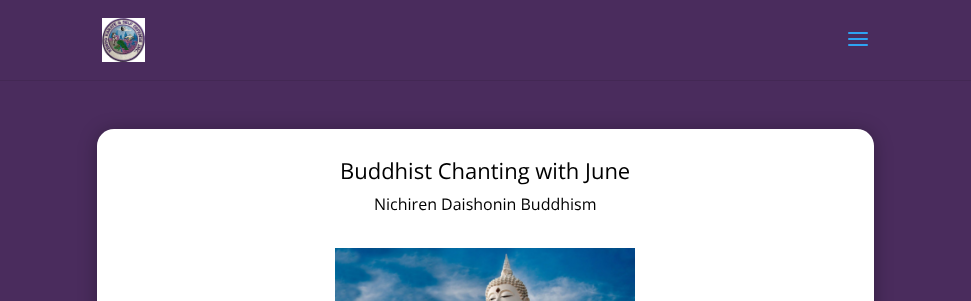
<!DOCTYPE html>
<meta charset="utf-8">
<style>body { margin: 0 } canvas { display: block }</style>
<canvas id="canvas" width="971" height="301"></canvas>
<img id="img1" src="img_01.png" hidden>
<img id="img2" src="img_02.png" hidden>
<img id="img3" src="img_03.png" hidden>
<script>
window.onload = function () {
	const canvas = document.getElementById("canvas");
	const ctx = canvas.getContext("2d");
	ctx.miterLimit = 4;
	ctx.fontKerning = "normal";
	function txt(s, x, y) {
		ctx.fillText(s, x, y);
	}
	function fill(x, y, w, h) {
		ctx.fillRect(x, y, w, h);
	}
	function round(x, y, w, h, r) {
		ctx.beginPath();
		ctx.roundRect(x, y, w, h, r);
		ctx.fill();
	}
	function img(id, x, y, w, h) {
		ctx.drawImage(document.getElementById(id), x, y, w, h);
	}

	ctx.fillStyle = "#4A2C5D";
	fill(0, 0, 971, 301);
	ctx.fillStyle = "#432854";
	fill(0, 80, 971, 1);
	img("img1", 102, 18, 43, 44);
	img("img2", 848, 32, 20, 14);
	ctx.fillStyle = "rgba(0, 0, 0, 0.3)";
	ctx.filter = "blur(9px)";
	ctx.beginPath();
	ctx.roundRect(97, 131, 777, 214, 17);
	ctx.fill();
	ctx.filter = "none";
	ctx.fillStyle = "#FFFFFF";
	round(97, 129, 777, 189, 17);
	img("img3", 335, 248, 300, 53);
	ctx.font = "22px Open Sans";
	ctx.fillStyle = "#000000";
	txt("Buddhist Chanting with June", 340, 179);
	ctx.font = "16px Open Sans";
	txt("Nichiren Daishonin Buddhism", 374, 210);
};
</script>
